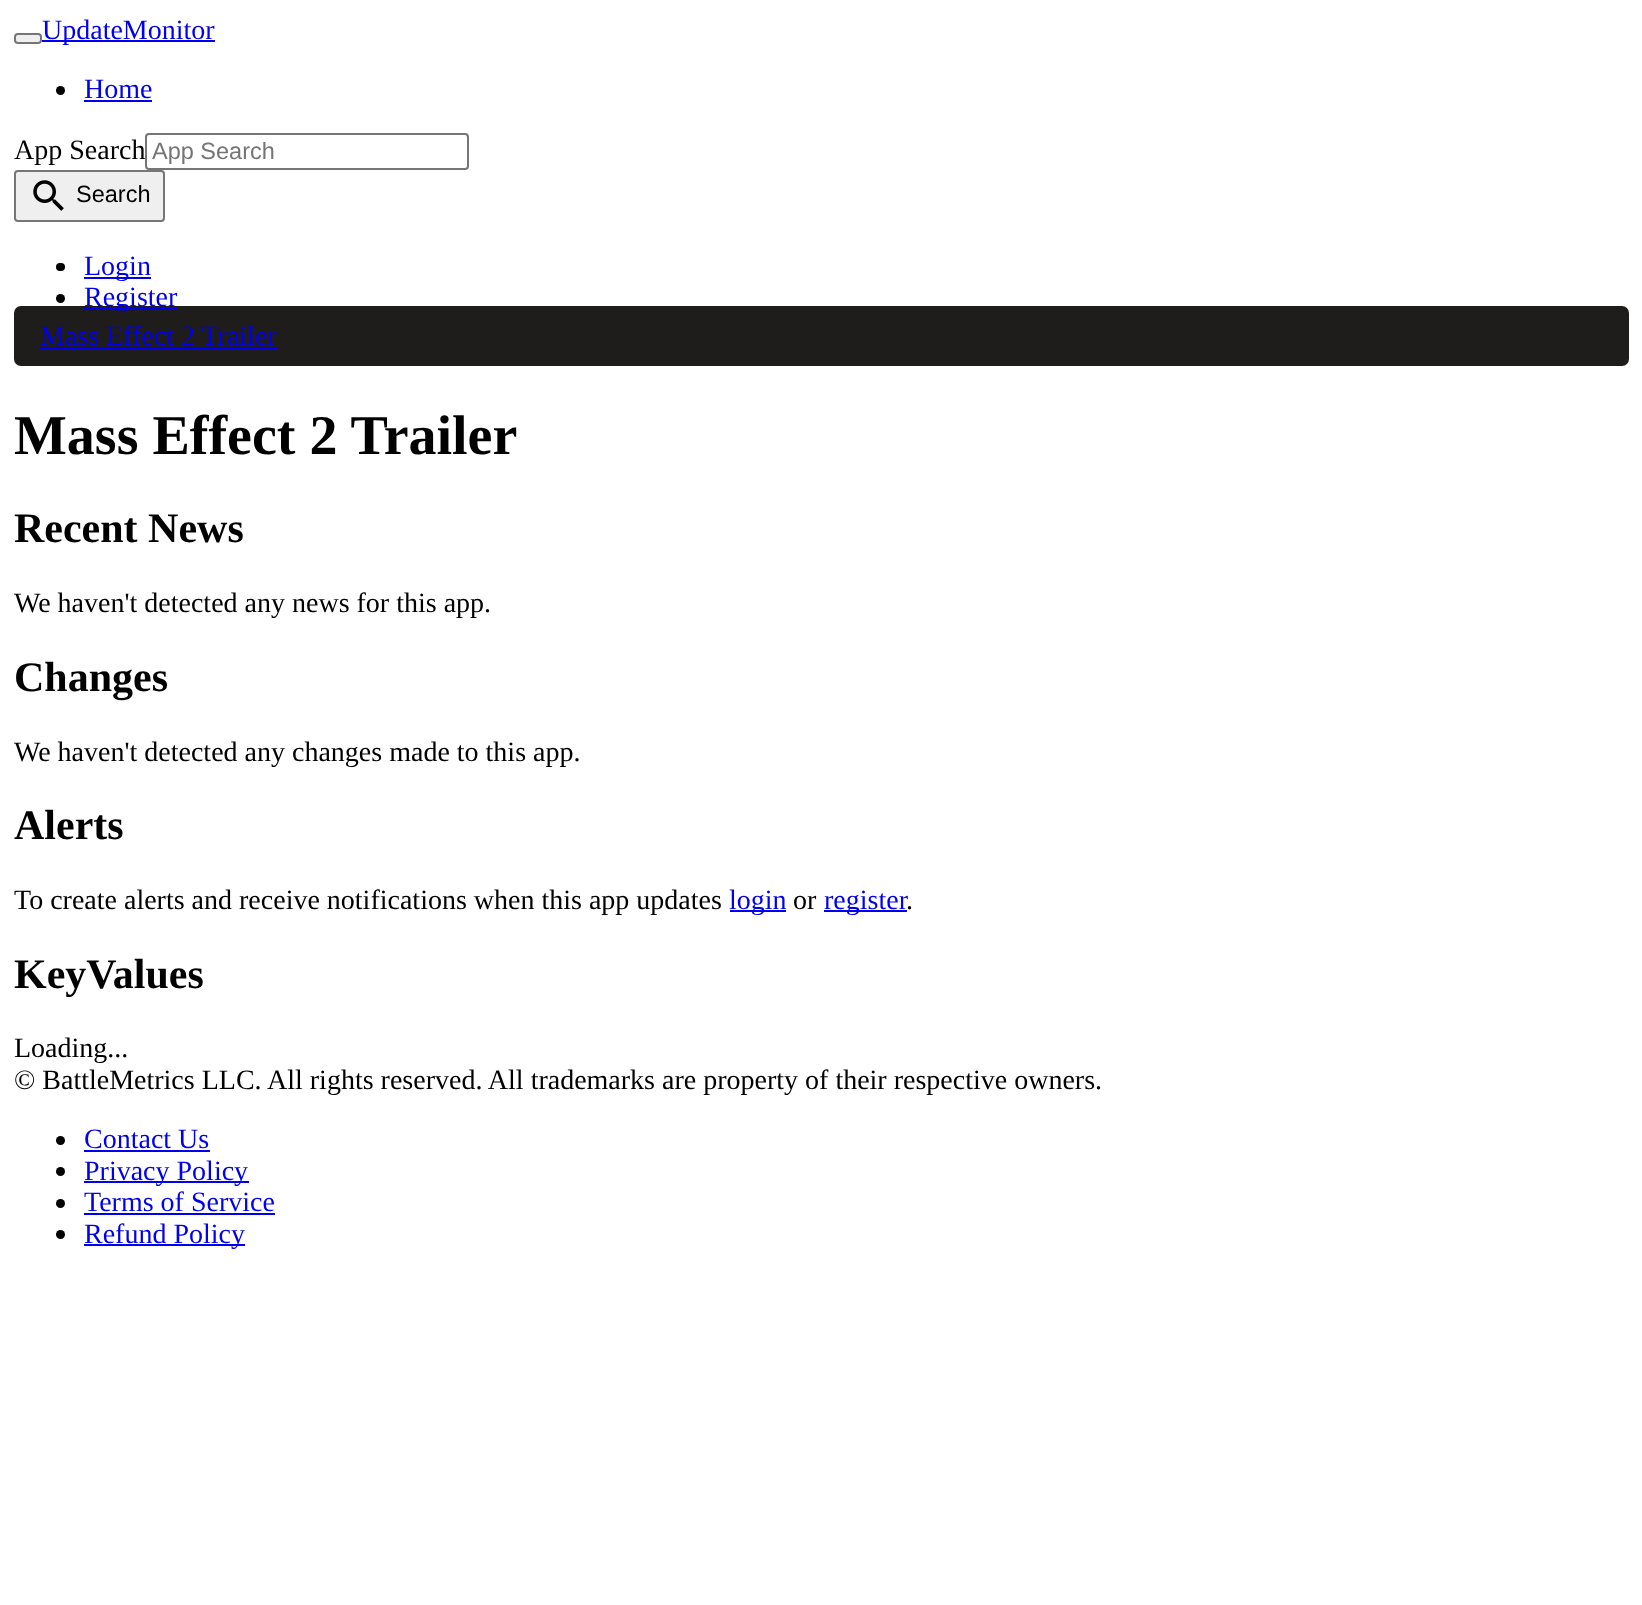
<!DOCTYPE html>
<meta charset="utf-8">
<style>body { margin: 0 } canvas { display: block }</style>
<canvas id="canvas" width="1642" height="1605"></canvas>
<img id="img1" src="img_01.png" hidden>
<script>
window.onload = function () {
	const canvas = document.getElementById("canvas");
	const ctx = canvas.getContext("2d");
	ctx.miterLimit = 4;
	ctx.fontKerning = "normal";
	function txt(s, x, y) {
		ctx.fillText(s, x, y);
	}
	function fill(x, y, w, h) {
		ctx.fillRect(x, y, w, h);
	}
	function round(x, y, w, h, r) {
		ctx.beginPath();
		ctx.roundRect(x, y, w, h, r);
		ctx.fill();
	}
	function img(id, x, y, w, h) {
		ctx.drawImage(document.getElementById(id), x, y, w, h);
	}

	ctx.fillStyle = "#FFFFFF";
	fill(0, 0, 1642, 1605);
	ctx.fillStyle = "#EFEFEF";
	ctx.beginPath();
	ctx.roundRect(15, 34, 26, 9, 3);
	ctx.fill();
	ctx.strokeStyle = "#767676";
	ctx.lineWidth = 2;
	ctx.stroke();
	ctx.fillStyle = "#0000EE";
	fill(42, 40, 173, 2);
	ctx.fillStyle = "#000000";
	ctx.beginPath();
	ctx.arc(60.5, 90.5, 4.5, 0, Math.PI * 2);
	ctx.fill();
	ctx.fillStyle = "#0000EE";
	fill(84, 100, 68, 2);
	ctx.fillStyle = "#EFEFEF";
	ctx.beginPath();
	ctx.roundRect(15, 171, 149, 50, 3);
	ctx.fill();
	ctx.stroke();
	img("img1", 33, 180, 31, 31);
	ctx.fillStyle = "#000000";
	round(56, 263, 9, 8, 4);
	ctx.fillStyle = "#0000EE";
	fill(84, 277, 67, 2);
	ctx.fillStyle = "#000000";
	ctx.beginPath();
	ctx.arc(60.5, 298.5, 4.5, 0, Math.PI * 2);
	ctx.fill();
	ctx.fillStyle = "#1F1D1C";
	round(14, 306, 1615, 60, 7);
	ctx.fillStyle = "#0000EE";
	fill(84, 308, 93, 2);
	fill(40, 347, 237, 2);
	fill(730, 910, 56, 2);
	fill(824, 910, 83, 2);
	ctx.fillStyle = "#000000";
	ctx.beginPath();
	ctx.arc(60.5, 1140.5, 4.5, 0, Math.PI * 2);
	ctx.fill();
	ctx.fillStyle = "#0000EE";
	fill(84, 1150, 126, 2);
	ctx.fillStyle = "#000000";
	ctx.beginPath();
	ctx.arc(60.5, 1171.5, 4.5, 0, Math.PI * 2);
	ctx.fill();
	ctx.fillStyle = "#0000EE";
	fill(84, 1181, 165, 2);
	ctx.fillStyle = "#000000";
	ctx.beginPath();
	ctx.arc(60.5, 1203.5, 4.5, 0, Math.PI * 2);
	ctx.fill();
	ctx.fillStyle = "#0000EE";
	fill(84, 1213, 191, 2);
	ctx.fillStyle = "#000000";
	ctx.beginPath();
	ctx.arc(60.5, 1234.5, 4.5, 0, Math.PI * 2);
	ctx.fill();
	ctx.fillStyle = "#0000EE";
	fill(84, 1244, 161, 2);
	ctx.font = "28px Liberation Serif";
	txt("UpdateMonitor", 42, 39);
	txt("Home", 84, 98);
	ctx.fillStyle = "#000000";
	txt("App Search", 14, 159);
	ctx.fillStyle = "#FFFFFF";
	ctx.beginPath();
	ctx.roundRect(146, 134, 322, 35, 3);
	ctx.fill();
	ctx.stroke();
	ctx.font = "23.5px Liberation Sans";
	ctx.fillStyle = "#757575";
	txt("App Search", 152, 159);
	ctx.fillStyle = "#000000";
	txt("Search", 76, 202);
	ctx.font = "28px Liberation Serif";
	ctx.fillStyle = "#0000EE";
	txt("Login", 84, 275);
	txt("Register", 84, 306);
	txt("Mass Effect 2 Trailer", 40, 345);
	ctx.font = "bold 56px Liberation Serif";
	ctx.fillStyle = "#000000";
	txt("Mass Effect 2 Trailer", 14, 454);
	ctx.font = "bold 42px Liberation Serif";
	txt("Recent News", 14, 542);
	ctx.font = "28px Liberation Serif";
	txt("We haven't detected any news for this app.", 14, 612);
	ctx.font = "bold 42px Liberation Serif";
	txt("Changes", 14, 691);
	ctx.font = "28px Liberation Serif";
	txt("We haven't detected any changes made to this app.", 14, 761);
	ctx.font = "bold 42px Liberation Serif";
	txt("Alerts", 14, 839);
	ctx.font = "28px Liberation Serif";
	txt("To create alerts and receive notifications when this app updates", 14, 909);
	ctx.fillStyle = "#0000EE";
	txt("login", 729, 909);
	ctx.fillStyle = "#000000";
	txt("or", 793, 909);
	ctx.fillStyle = "#0000EE";
	txt("register", 824, 909);
	ctx.fillStyle = "#000000";
	txt(".", 906, 909);
	ctx.font = "bold 42px Liberation Serif";
	txt("KeyValues", 14, 988);
	ctx.font = "28px Liberation Serif";
	txt("Loading...", 14, 1057);
	txt("© BattleMetrics LLC. All rights reserved. All trademarks are property of their respective owners.", 14, 1089);
	ctx.fillStyle = "#0000EE";
	txt("Contact Us", 84, 1148);
	txt("Privacy Policy", 84, 1180);
	txt("Terms of Service", 84, 1211);
	txt("Refund Policy", 84, 1243);
};
</script>
